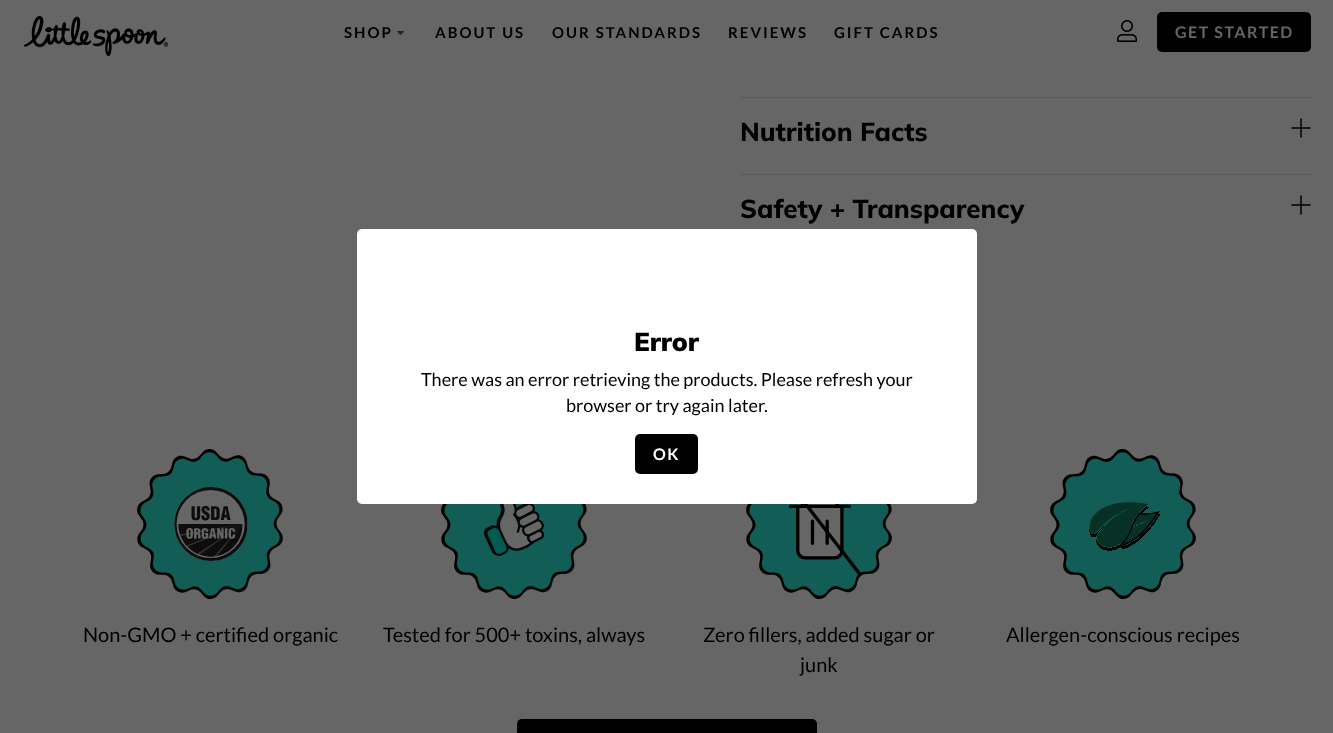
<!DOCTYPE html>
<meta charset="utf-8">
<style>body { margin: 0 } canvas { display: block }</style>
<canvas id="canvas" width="1333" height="733"></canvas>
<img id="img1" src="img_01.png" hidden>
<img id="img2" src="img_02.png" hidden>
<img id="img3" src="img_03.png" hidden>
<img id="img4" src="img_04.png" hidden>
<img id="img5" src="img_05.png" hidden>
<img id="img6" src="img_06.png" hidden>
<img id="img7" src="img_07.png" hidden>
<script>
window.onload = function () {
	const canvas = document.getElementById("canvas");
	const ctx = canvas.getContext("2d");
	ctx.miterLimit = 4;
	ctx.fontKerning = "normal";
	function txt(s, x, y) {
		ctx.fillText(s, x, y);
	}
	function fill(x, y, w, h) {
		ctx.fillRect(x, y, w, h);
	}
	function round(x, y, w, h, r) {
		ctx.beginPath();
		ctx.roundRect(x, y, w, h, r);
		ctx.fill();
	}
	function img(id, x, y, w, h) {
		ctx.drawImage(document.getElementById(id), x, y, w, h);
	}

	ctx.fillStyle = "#666666";
	fill(0, 0, 1333, 733);
	img("img1", 23, 16, 146, 40);
	img("img2", 397, 31, 7, 4);
	img("img3", 1117, 20, 20, 22);
	ctx.fillStyle = "#000000";
	round(1157, 12, 154, 40, 5);
	ctx.fillStyle = "#5A5A5A";
	fill(740, 97, 573, 1);
	fill(740, 174, 573, 1);
	ctx.beginPath();
	ctx.moveTo(1301, 119);
	ctx.lineTo(1301, 137);
	ctx.moveTo(1292, 128);
	ctx.lineTo(1310, 128);
	ctx.strokeStyle = "#000000";
	ctx.lineWidth = 1.5;
	ctx.lineCap = "round";
	ctx.lineJoin = "round";
	ctx.stroke();
	ctx.beginPath();
	ctx.moveTo(1301, 196);
	ctx.lineTo(1301, 214);
	ctx.moveTo(1292, 205);
	ctx.lineTo(1310, 205);
	ctx.stroke();
	img("img4", 137, 449, 146, 150);
	img("img5", 441, 504, 146, 95);
	img("img6", 746, 504, 146, 95);
	img("img7", 1050, 449, 146, 150);
	ctx.fillStyle = "#000000";
	round(517, 719, 300, 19, 5);
	ctx.fillStyle = "#FFFFFF";
	round(357, 229, 620, 275, 5);
	ctx.fillStyle = "#000000";
	round(635, 434, 63, 40, 5);
	ctx.letterSpacing = "2px";
	ctx.font = "bold 15px Lato";
	txt("SHOP", 344, 38);
	txt("ABOUT US", 435, 38);
	txt("OUR STANDARDS", 552, 38);
	txt("REVIEWS", 728, 38);
	txt("GIFT CARDS", 834, 38);
	ctx.letterSpacing = "1.5px";
	ctx.font = "bold 16px Lato";
	ctx.fillStyle = "#666666";
	txt("GET STARTED", 1175, 38);
	ctx.letterSpacing = "0px";
	ctx.font = "800 26px Mulish";
	ctx.fillStyle = "#000000";
	txt("Nutrition Facts", 740, 141);
	txt("Safety + Transparency", 740, 218);
	ctx.font = "20px Lato";
	txt("Non-GMO + certified organic", 83, 642);
	txt("Tested for 500+ toxins, always", 383, 642);
	txt("Zero fillers, added sugar or", 703, 642);
	txt("junk", 800, 672);
	txt("Allergen-conscious recipes", 1006, 642);
	ctx.font = "900 26px Mulish";
	txt("Error", 634, 351);
	ctx.font = "18px Lato";
	txt("There was an error retrieving the products. Please refresh your", 421, 386);
	txt("browser or try again later.", 566, 412);
	ctx.letterSpacing = "1.5px";
	ctx.font = "bold 16px Lato";
	ctx.fillStyle = "#FFFFFF";
	txt("OK", 653, 460);
};
</script>
